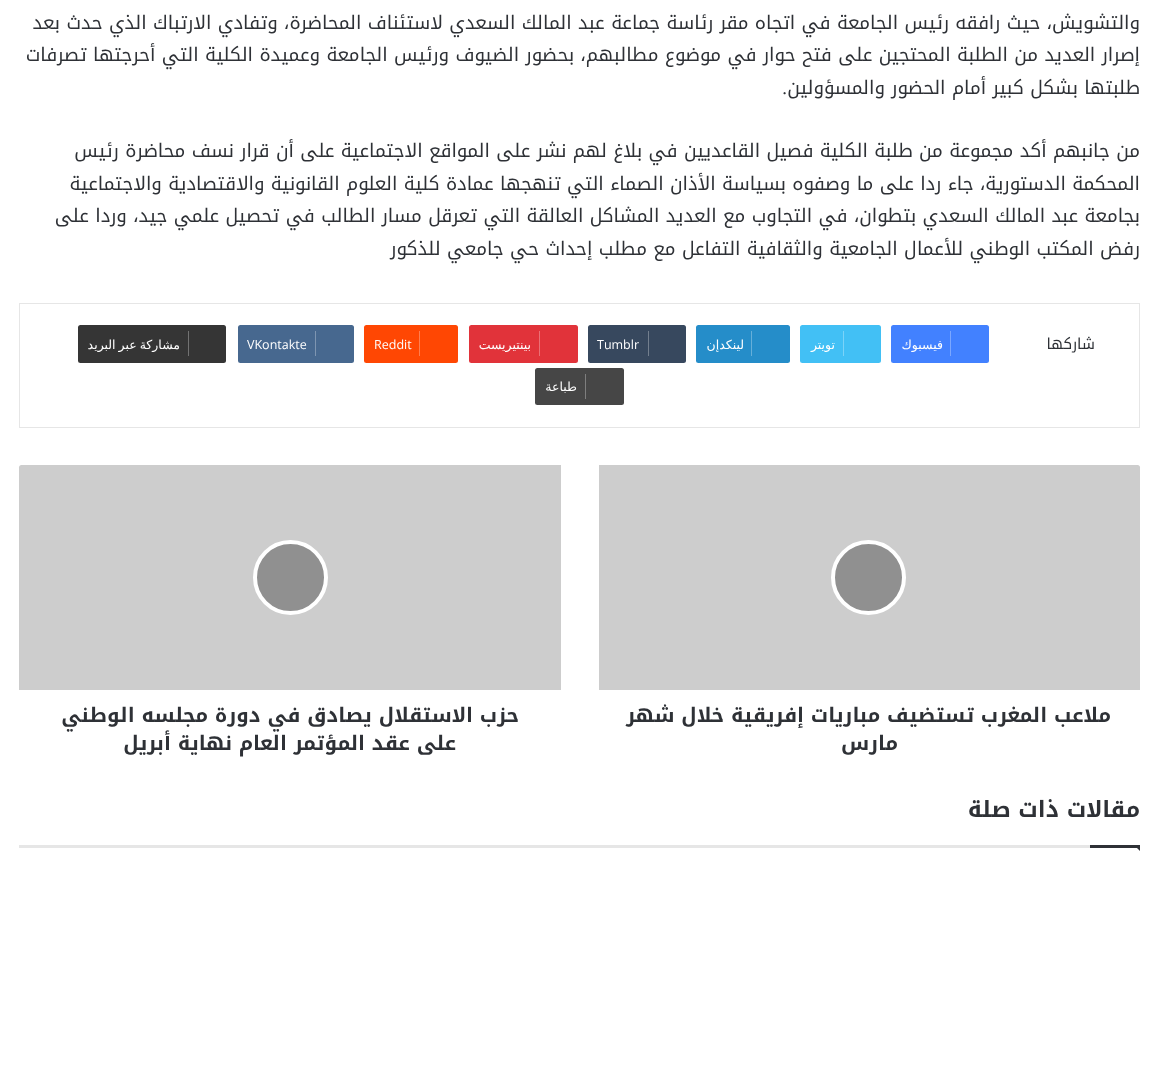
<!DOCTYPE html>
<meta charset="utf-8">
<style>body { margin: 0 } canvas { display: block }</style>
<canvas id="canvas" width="1158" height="1071"></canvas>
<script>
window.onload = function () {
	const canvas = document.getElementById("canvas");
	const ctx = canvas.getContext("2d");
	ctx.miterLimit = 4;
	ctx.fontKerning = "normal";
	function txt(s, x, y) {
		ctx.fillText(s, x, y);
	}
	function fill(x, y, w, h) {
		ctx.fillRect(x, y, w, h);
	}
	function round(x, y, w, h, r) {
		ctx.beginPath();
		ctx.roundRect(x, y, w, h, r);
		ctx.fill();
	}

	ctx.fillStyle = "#FFFFFF";
	fill(0, 0, 1158, 1071);
	ctx.strokeStyle = "#E6E6E6";
	ctx.strokeRect(19.5, 303.5, 1120, 124);
	ctx.fillStyle = "#4281FF";
	round(891, 325, 98, 38, 2.5);
	ctx.fillStyle = "#7BA7FF";
	fill(950, 331, 1, 25);
	ctx.fillStyle = "#42C0F5";
	round(800, 325, 81, 38, 2.5);
	ctx.fillStyle = "#7BD3F8";
	fill(843, 331, 1, 25);
	ctx.fillStyle = "#258DC9";
	round(696, 325, 94, 38, 2.5);
	ctx.fillStyle = "#66AFD9";
	fill(751, 331, 1, 25);
	ctx.fillStyle = "#37485E";
	round(588, 325, 98, 38, 2.5);
	ctx.fillStyle = "#737F8E";
	fill(648, 331, 1, 25);
	ctx.fillStyle = "#E1333A";
	round(469, 325, 109, 38, 2.5);
	ctx.fillStyle = "#EA7075";
	fill(539, 331, 1, 25);
	ctx.fillStyle = "#FF4703";
	round(364, 325, 94, 38, 2.5);
	ctx.fillStyle = "#FF7E4F";
	fill(419, 331, 1, 25);
	ctx.fillStyle = "#47688F";
	round(238, 325, 116, 38, 2.5);
	ctx.fillStyle = "#7E95B1";
	fill(315, 331, 1, 25);
	ctx.fillStyle = "#353535";
	round(78, 325, 148, 38, 2.5);
	ctx.fillStyle = "#727272";
	fill(188, 331, 1, 25);
	ctx.fillStyle = "#464646";
	round(535, 368, 89, 37, 2.5);
	ctx.fillStyle = "#7E7E7E";
	fill(585, 374, 1, 25);
	ctx.fillStyle = "#CDCDCD";
	ctx.beginPath();
	ctx.roundRect(599, 465, 541, 225, [0, 2.5, 0, 0]);
	ctx.fill();
	ctx.fillStyle = "#909090";
	ctx.beginPath();
	ctx.arc(868.5, 577.5, 35.5, 0, Math.PI * 2);
	ctx.fill();
	ctx.strokeStyle = "#FFFFFF";
	ctx.lineWidth = 4;
	ctx.stroke();
	ctx.fillStyle = "#CDCDCD";
	ctx.beginPath();
	ctx.roundRect(19, 465, 542, 225, [2.5, 0, 0, 0]);
	ctx.fill();
	ctx.fillStyle = "#909090";
	ctx.beginPath();
	ctx.arc(290.5, 577.5, 35.5, 0, Math.PI * 2);
	ctx.fill();
	ctx.stroke();
	ctx.fillStyle = "#E6E6E6";
	fill(19, 845, 1071, 3);
	ctx.fillStyle = "#2E3136";
	ctx.beginPath();
	ctx.moveTo(1134, 845);
	ctx.lineTo(1140, 845);
	ctx.lineTo(1140, 851);
	ctx.closePath();
	ctx.fill();
	fill(1090, 845, 50, 3);
	ctx.direction = "rtl";
	ctx.font = "18.75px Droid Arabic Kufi";
	txt("والتشويش، حيث رافقه رئيس الجامعة في اتجاه مقر رئاسة جماعة عبد المالك السعدي لاستئناف المحاضرة، وتفادي الارتباك الذي حدث بعد", 1140, 29);
	txt("إصرار العديد من الطلبة المحتجين على فتح حوار في موضوع مطالبهم، بحضور الضيوف ورئيس الجامعة وعميدة الكلية التي أحرجتها تصرفات", 1140, 61);
	txt("طلبتها بشكل كبير أمام الحضور والمسؤولين", 1140, 94);
	ctx.font = "18.75px Liberation Serif";
	txt(".", 787, 94);
	ctx.font = "18.75px Droid Arabic Kufi";
	txt("من جانبهم أكد مجموعة من طلبة الكلية فصيل القاعديين في بلاغ لهم نشر على المواقع الاجتماعية على أن قرار نسف محاضرة رئيس", 1140, 157);
	txt("المحكمة الدستورية، جاء ردا على ما وصفوه بسياسة الأذان الصماء التي تنهجها عمادة كلية العلوم القانونية والاقتصادية والاجتماعية", 1140, 190);
	txt("بجامعة عبد المالك السعدي بتطوان، في التجاوب مع العديد المشاكل العالقة التي تعرقل مسار الطالب في تحصيل علمي جيد، وردا على", 1140, 222);
	txt("رفض المكتب الوطني للأعمال الجامعية والثقافية التفاعل مع مطلب إحداث حي جامعي للذكور", 1140, 255);
	ctx.font = "15px Droid Arabic Kufi";
	txt("شاركها", 1095, 349);
	ctx.font = "12.5px DejaVu Sans";
	ctx.fillStyle = "#FFFFFF";
	txt("فيسبوك", 943, 349);
	txt("تويتر", 835, 349);
	txt("لينكدإن", 744, 349);
	ctx.direction = "ltr";
	ctx.font = "12.5px Open Sans";
	txt("Tumblr", 597, 349);
	ctx.direction = "rtl";
	ctx.font = "12.5px DejaVu Sans";
	txt("بينتيريست", 531, 349);
	ctx.direction = "ltr";
	ctx.font = "12.5px Open Sans";
	txt("Reddit", 374, 349);
	txt("VKontakte", 247, 349);
	ctx.wordSpacing = "-1px";
	ctx.direction = "rtl";
	ctx.font = "12.5px DejaVu Sans";
	txt("مشاركة عبر البريد", 180, 349);
	ctx.wordSpacing = "0px";
	txt("طباعة", 577, 391);
	ctx.font = "bold 20px Droid Arabic Kufi";
	ctx.fillStyle = "#2E3136";
	txt("ملاعب المغرب تستضيف مباريات إفريقية خلال شهر", 1111, 722);
	txt("مارس", 898, 750);
	txt("حزب الاستقلال يصادق في دورة مجلسه الوطني", 519, 722);
	txt("على عقد المؤتمر العام نهاية أبريل", 456, 750);
	ctx.font = "bold 22.5px Droid Arabic Kufi";
	txt("مقالات ذات صلة", 1140, 817);
};
</script>
